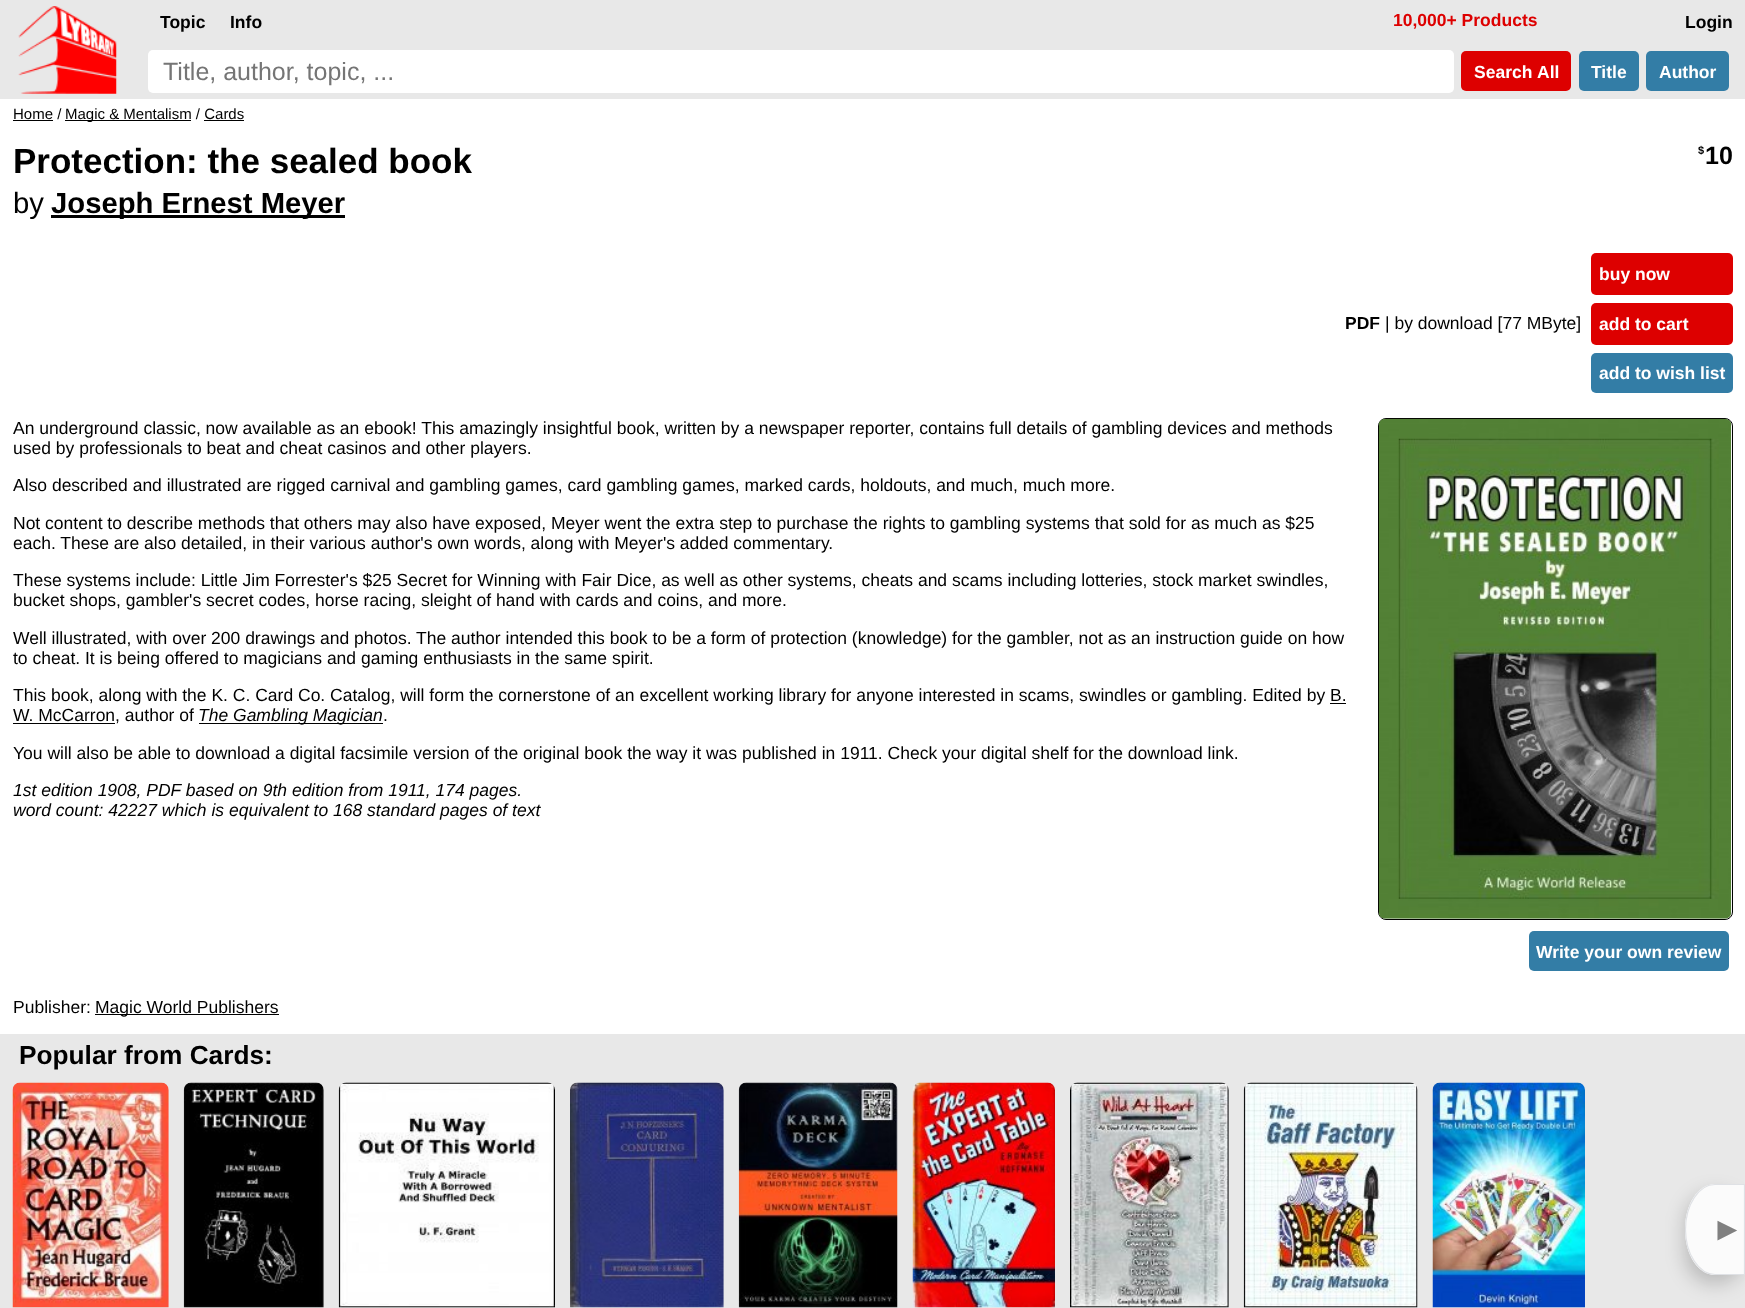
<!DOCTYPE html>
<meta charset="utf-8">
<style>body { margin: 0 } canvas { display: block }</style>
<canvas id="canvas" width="1745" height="1308"></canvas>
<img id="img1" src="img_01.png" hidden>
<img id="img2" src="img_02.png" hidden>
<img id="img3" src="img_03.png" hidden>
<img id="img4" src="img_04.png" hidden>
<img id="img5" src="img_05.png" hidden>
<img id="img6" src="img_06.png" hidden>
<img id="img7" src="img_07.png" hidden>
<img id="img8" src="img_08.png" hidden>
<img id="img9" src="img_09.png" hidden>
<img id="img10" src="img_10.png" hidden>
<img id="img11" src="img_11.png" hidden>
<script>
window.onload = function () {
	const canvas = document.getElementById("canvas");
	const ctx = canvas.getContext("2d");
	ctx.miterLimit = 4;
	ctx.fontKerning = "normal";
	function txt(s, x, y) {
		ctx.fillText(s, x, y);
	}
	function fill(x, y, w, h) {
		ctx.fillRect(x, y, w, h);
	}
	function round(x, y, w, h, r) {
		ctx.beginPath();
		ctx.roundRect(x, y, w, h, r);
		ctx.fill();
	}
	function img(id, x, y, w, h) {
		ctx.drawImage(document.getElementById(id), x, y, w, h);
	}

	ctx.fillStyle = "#E8E8E8";
	fill(0, 0, 1745, 1308);
	img("img1", 18, 6, 99, 88);
	ctx.fillStyle = "#FFFFFF";
	round(148, 50, 1306, 43, 5);
	ctx.fillStyle = "#DD0000";
	round(1461, 51, 110, 40, 5);
	ctx.fillStyle = "#337DA6";
	round(1579, 51, 60, 40, 5);
	round(1646, 51, 83, 40, 5);
	ctx.fillStyle = "#FFFFFF";
	fill(0, 99, 1745, 935);
	ctx.fillStyle = "#000000";
	fill(13, 120, 40, 1);
	fill(65, 120, 126, 1);
	fill(204, 120, 40, 1);
	fill(51, 215, 294, 3);
	ctx.fillStyle = "#DD0000";
	round(1591, 253, 142, 42, 5);
	round(1591, 303, 142, 42, 5);
	ctx.fillStyle = "#337DA6";
	round(1591, 353, 142, 40, 5);
	ctx.fillStyle = "#000000";
	fill(1330, 703, 16, 1);
	fill(13, 723, 102, 1);
	fill(199, 723, 184, 1);
	ctx.beginPath();
	ctx.roundRect(1378.5, 418.5, 354, 501, 7.5);
	ctx.strokeStyle = "#000000";
	ctx.stroke();
	img("img2", 1378, 418, 354, 501);
	ctx.fillStyle = "#337DA6";
	round(1529, 931, 200, 40, 5);
	ctx.fillStyle = "#000000";
	fill(95, 1014, 184, 1);
	img("img3", 12, 1082, 157, 226);
	img("img4", 183, 1082, 141, 226);
	img("img5", 338, 1082, 217, 226);
	img("img6", 570, 1082, 154, 226);
	img("img7", 738, 1082, 160, 226);
	img("img8", 912, 1082, 143, 226);
	img("img9", 1070, 1082, 159, 226);
	img("img10", 1243, 1082, 175, 226);
	img("img11", 1432, 1082, 153, 226);
	ctx.save();
	ctx.beginPath();
	ctx.moveTo(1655, 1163);
	ctx.lineTo(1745, 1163);
	ctx.lineTo(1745, 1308);
	ctx.lineTo(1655, 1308);
	ctx.closePath();
	ctx.moveTo(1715, 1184);
	ctx.lineTo(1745, 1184);
	ctx.lineTo(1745, 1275);
	ctx.lineTo(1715, 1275);
	ctx.bezierCurveTo(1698.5, 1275, 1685, 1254.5, 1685, 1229.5);
	ctx.bezierCurveTo(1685, 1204, 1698.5, 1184, 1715, 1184);
	ctx.closePath();
	ctx.clip("evenodd");
	ctx.fillStyle = "rgba(0, 0, 0, 0.2)";
	ctx.filter = "blur(9.5px)";
	ctx.beginPath();
	ctx.roundRect(1685, 1193, 60, 91, 30);
	ctx.fill();
	ctx.filter = "none";
	ctx.restore();
	ctx.fillStyle = "rgba(255, 255, 255, 0.8)";
	ctx.beginPath();
	ctx.moveTo(1715, 1184);
	ctx.lineTo(1745, 1184);
	ctx.lineTo(1745, 1275);
	ctx.lineTo(1715, 1275);
	ctx.bezierCurveTo(1698, 1275, 1685, 1255, 1685, 1229);
	ctx.bezierCurveTo(1685, 1204, 1698, 1184, 1715, 1184);
	ctx.closePath();
	ctx.fill();
	ctx.beginPath();
	ctx.moveTo(1715, 1184.5);
	ctx.lineTo(1744.5, 1184.5);
	ctx.lineTo(1744.5, 1274.5);
	ctx.lineTo(1715, 1274.5);
	ctx.bezierCurveTo(1699, 1274.5, 1685.5, 1254, 1685.5, 1229.5);
	ctx.bezierCurveTo(1685.5, 1204.5, 1699, 1184.5, 1715, 1184.5);
	ctx.closePath();
	ctx.strokeStyle = "#DFE1E5";
	ctx.lineWidth = 1.2;
	ctx.stroke();
	ctx.font = "bold 17.5px Liberation Sans";
	ctx.fillStyle = "#000000";
	txt("Topic", 160, 28);
	txt("Info", 230, 28);
	ctx.fillStyle = "#DD0000";
	txt("10,000+ Products", 1393, 26);
	ctx.fillStyle = "#000000";
	txt("Login", 1685, 28);
	ctx.font = "25px Liberation Sans";
	ctx.fillStyle = "#757575";
	txt("Title, author, topic, ...", 163, 80);
	ctx.font = "bold 17.5px Liberation Sans";
	ctx.fillStyle = "#FFFFFF";
	txt("Search", 1474, 78);
	txt("All", 1537, 78);
	txt("Title", 1591, 78);
	txt("Author", 1659, 78);
	ctx.font = "15px Liberation Sans";
	ctx.fillStyle = "#000000";
	txt("Home /", 13, 119);
	txt("Magic & Mentalism / Cards", 65, 119);
	ctx.font = "bold 35px Liberation Sans";
	txt("Protection: the sealed book", 13, 173);
	ctx.font = "29.25px Liberation Sans";
	txt("by", 13, 213);
	ctx.font = "bold 29.25px Liberation Sans";
	txt("Joseph Ernest Meyer", 51, 213);
	ctx.font = "bold 11px Liberation Sans";
	txt("$", 1698, 154);
	ctx.font = "bold 25px Liberation Sans";
	txt("10", 1705, 164);
	ctx.font = "bold 17.5px Liberation Sans";
	txt("PDF", 1345, 329);
	ctx.font = "17.5px Liberation Sans";
	txt("| by download [77 MByte]", 1385, 329);
	ctx.font = "bold 17.5px Liberation Sans";
	ctx.fillStyle = "#FFFFFF";
	txt("buy now", 1599, 280);
	txt("add to cart", 1599, 330);
	txt("add to wish list", 1599, 379);
	ctx.font = "17.5px Liberation Sans";
	ctx.fillStyle = "#000000";
	txt("An underground classic, now available as an ebook! This amazingly insightful book, written by a newspaper reporter, contains full details of gambling devices and methods", 13, 434);
	txt("used by professionals to beat and cheat casinos and other players.", 13, 454);
	txt("Also described and illustrated are rigged carnival and gambling games, card gambling games, marked cards, holdouts, and much, much more.", 13, 491);
	txt("Not content to describe methods that others may also have exposed, Meyer went the extra step to purchase the rights to gambling systems that sold for as much as $25", 13, 529);
	txt("each. These are also detailed, in their various author's own words, along with Meyer's added commentary.", 13, 549);
	txt("These systems include: Little Jim Forrester's $25 Secret for Winning with Fair Dice, as well as other systems, cheats and scams including lotteries, stock market swindles,", 13, 586);
	txt("bucket shops, gambler's secret codes, horse racing, sleight of hand with cards and coins, and more.", 13, 606);
	txt("Well illustrated, with over 200 drawings and photos. The author intended this book to be a form of protection (knowledge) for the gambler, not as an instruction guide on how", 13, 644);
	txt("to cheat. It is being offered to magicians and gaming enthusiasts in the same spirit.", 13, 664);
	txt("This book, along with the K. C. Card Co. Catalog, will form the cornerstone of an excellent working library for anyone interested in scams, swindles or gambling. Edited by B.", 13, 701);
	txt("W. McCarron, author of", 13, 721);
	ctx.font = "italic 17.5px Liberation Sans";
	txt("The Gambling Magician", 198, 721);
	ctx.font = "17.5px Liberation Sans";
	txt(".", 383, 721);
	txt("You will also be able to download a digital facsimile version of the original book the way it was published in 1911. Check your digital shelf for the download link.", 13, 759);
	ctx.font = "italic 17.5px Liberation Sans";
	txt("1st edition 1908, PDF based on 9th edition from 1911, 174 pages.", 13, 796);
	txt("word count: 42227 which is equivalent to 168 standard pages of text", 13, 816);
	ctx.font = "bold 17.5px Liberation Sans";
	ctx.fillStyle = "#FFFFFF";
	txt("Write your own review", 1536, 958);
	ctx.font = "17.5px Liberation Sans";
	ctx.fillStyle = "#000000";
	txt("Publisher:", 13, 1013);
	txt("Magic World Publishers", 95, 1013);
	ctx.font = "bold 26.25px Liberation Sans";
	txt("Popular from Cards:", 19, 1064);
	ctx.font = "33px Liberation Sans";
	ctx.fillStyle = "#808080";
	txt("►", 1711, 1240);
};
</script>
